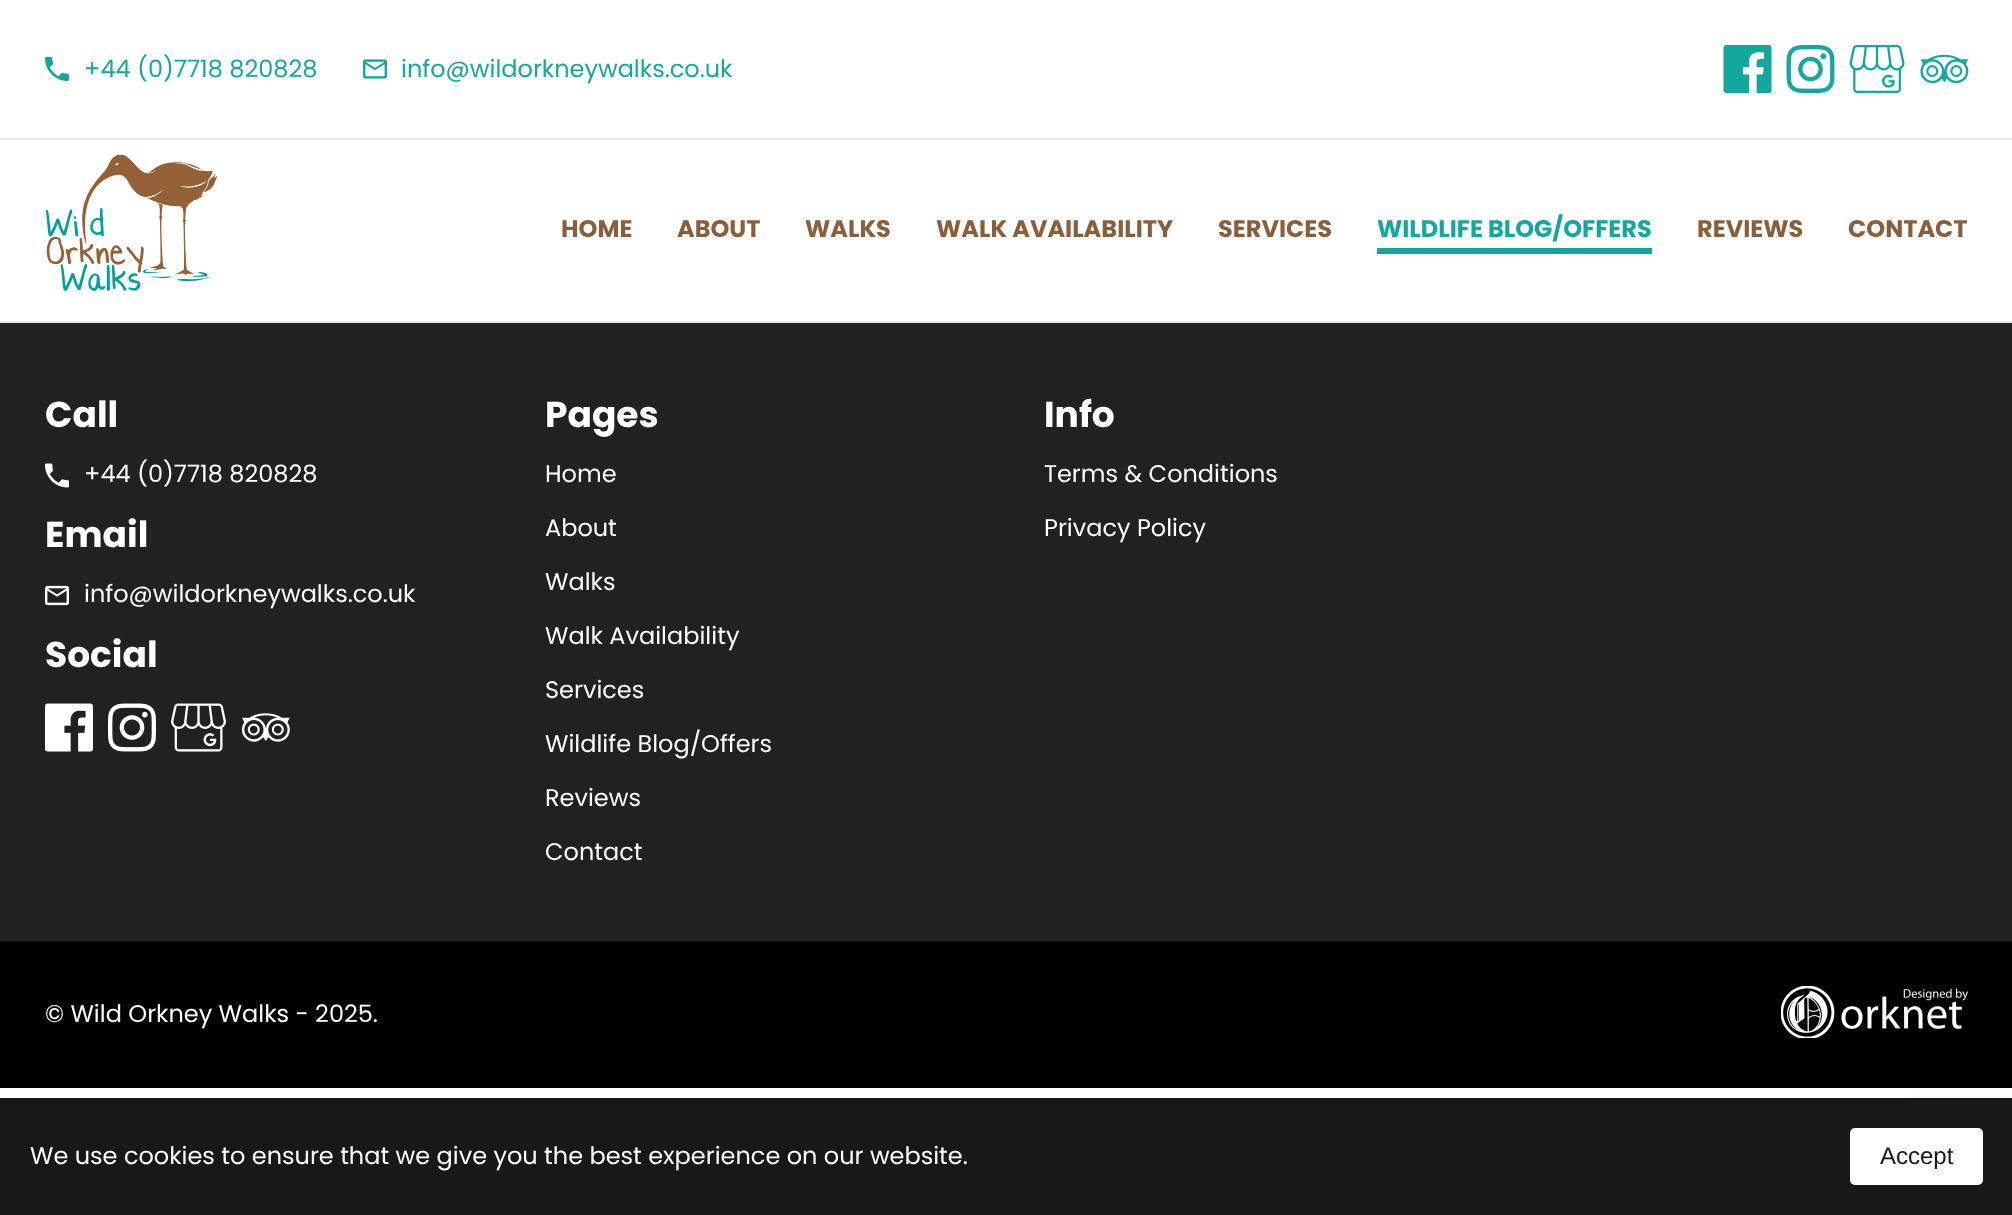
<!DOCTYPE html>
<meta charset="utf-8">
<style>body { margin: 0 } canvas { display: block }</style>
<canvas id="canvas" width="2012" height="1215"></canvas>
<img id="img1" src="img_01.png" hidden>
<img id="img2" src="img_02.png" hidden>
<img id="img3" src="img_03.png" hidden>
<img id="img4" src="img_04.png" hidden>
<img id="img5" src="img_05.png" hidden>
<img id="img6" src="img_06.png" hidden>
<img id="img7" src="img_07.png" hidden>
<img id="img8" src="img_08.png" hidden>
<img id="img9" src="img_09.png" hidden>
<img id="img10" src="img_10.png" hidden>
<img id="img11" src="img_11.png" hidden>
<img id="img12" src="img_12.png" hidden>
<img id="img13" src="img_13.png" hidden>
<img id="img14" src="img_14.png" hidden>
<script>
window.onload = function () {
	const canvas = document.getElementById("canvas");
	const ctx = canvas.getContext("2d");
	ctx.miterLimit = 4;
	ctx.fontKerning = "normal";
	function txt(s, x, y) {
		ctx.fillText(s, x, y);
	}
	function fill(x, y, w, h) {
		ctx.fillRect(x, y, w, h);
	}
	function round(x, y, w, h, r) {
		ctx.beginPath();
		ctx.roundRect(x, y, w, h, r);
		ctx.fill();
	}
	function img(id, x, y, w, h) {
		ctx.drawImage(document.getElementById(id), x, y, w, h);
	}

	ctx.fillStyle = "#FFFFFF";
	fill(0, 0, 2012, 1215);
	ctx.fillStyle = "#E9E9E9";
	fill(0, 138, 2012, 2);
	img("img1", 45, 57, 24, 24);
	img("img2", 363, 59, 24, 20);
	img("img3", 1723, 45, 49, 48);
	img("img4", 1786, 45, 49, 48);
	img("img5", 1849, 45, 56, 48);
	img("img6", 1920, 54, 49, 30);
	fill(0, 321, 2012, 2);
	img("img7", 45, 155, 173, 136);
	ctx.fillStyle = "#13A89E";
	fill(1377, 248, 275, 6);
	ctx.fillStyle = "#212121";
	fill(0, 323, 2012, 618);
	img("img8", 45, 463, 24, 25);
	img("img9", 45, 585, 24, 21);
	img("img10", 45, 703, 48, 49);
	img("img11", 108, 703, 48, 49);
	img("img12", 171, 703, 55, 49);
	img("img13", 241, 713, 49, 29);
	ctx.fillStyle = "#000000";
	fill(0, 941, 2012, 147);
	img("img14", 1781, 986, 187, 52);
	ctx.fillStyle = "#808080";
	ctx.filter = "blur(4px)";
	ctx.beginPath();
	ctx.roundRect(1908, 1104, 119, 90, 3);
	ctx.fill();
	ctx.filter = "none";
	ctx.fillStyle = "#181818";
	fill(0, 1098, 2012, 117);
	ctx.fillStyle = "#FFFFFF";
	round(1850, 1128, 133, 57, 5);
	ctx.font = "24px Poppins";
	ctx.fillStyle = "#13A89E";
	txt("+44 (0)7718 820828", 84, 77);
	txt("info@wildorkneywalks.co.uk", 401, 77);
	ctx.font = "bold 24px Poppins";
	ctx.fillStyle = "#8B5E3B";
	txt("HOME", 561, 237);
	txt("ABOUT", 677, 237);
	txt("WALKS", 805, 237);
	txt("WALK AVAILABILITY", 936, 237);
	txt("SERVICES", 1218, 237);
	ctx.fillStyle = "#13A89E";
	txt("WILDLIFE BLOG/OFFERS", 1377, 237);
	ctx.fillStyle = "#8B5E3B";
	txt("REVIEWS", 1697, 237);
	txt("CONTACT", 1848, 237);
	ctx.font = "bold 36px Poppins";
	ctx.fillStyle = "#FFFFFF";
	txt("Call", 45, 427);
	ctx.font = "24px Poppins";
	txt("+44 (0)7718 820828", 84, 482);
	ctx.font = "bold 36px Poppins";
	txt("Email", 45, 547);
	ctx.font = "24px Poppins";
	txt("info@wildorkneywalks.co.uk", 84, 602);
	ctx.font = "bold 36px Poppins";
	txt("Social", 45, 667);
	txt("Pages", 545, 427);
	ctx.font = "24px Poppins";
	txt("Home", 545, 482);
	txt("About", 545, 536);
	txt("Walks", 545, 590);
	txt("Walk Availability", 545, 644);
	txt("Services", 545, 698);
	txt("Wildlife Blog/Offers", 545, 752);
	txt("Reviews", 545, 806);
	txt("Contact", 545, 860);
	ctx.font = "bold 36px Poppins";
	txt("Info", 1044, 427);
	ctx.font = "24px Poppins";
	txt("Terms & Conditions", 1044, 482);
	txt("Privacy Policy", 1044, 536);
	txt("© Wild Orkney Walks - 2025.", 45, 1022);
	txt("We use cookies to ensure that we give you the best experience on our website.", 30, 1164);
	ctx.font = "24px Liberation Sans";
	ctx.fillStyle = "#181818";
	txt("Accept", 1880, 1164);
};
</script>
